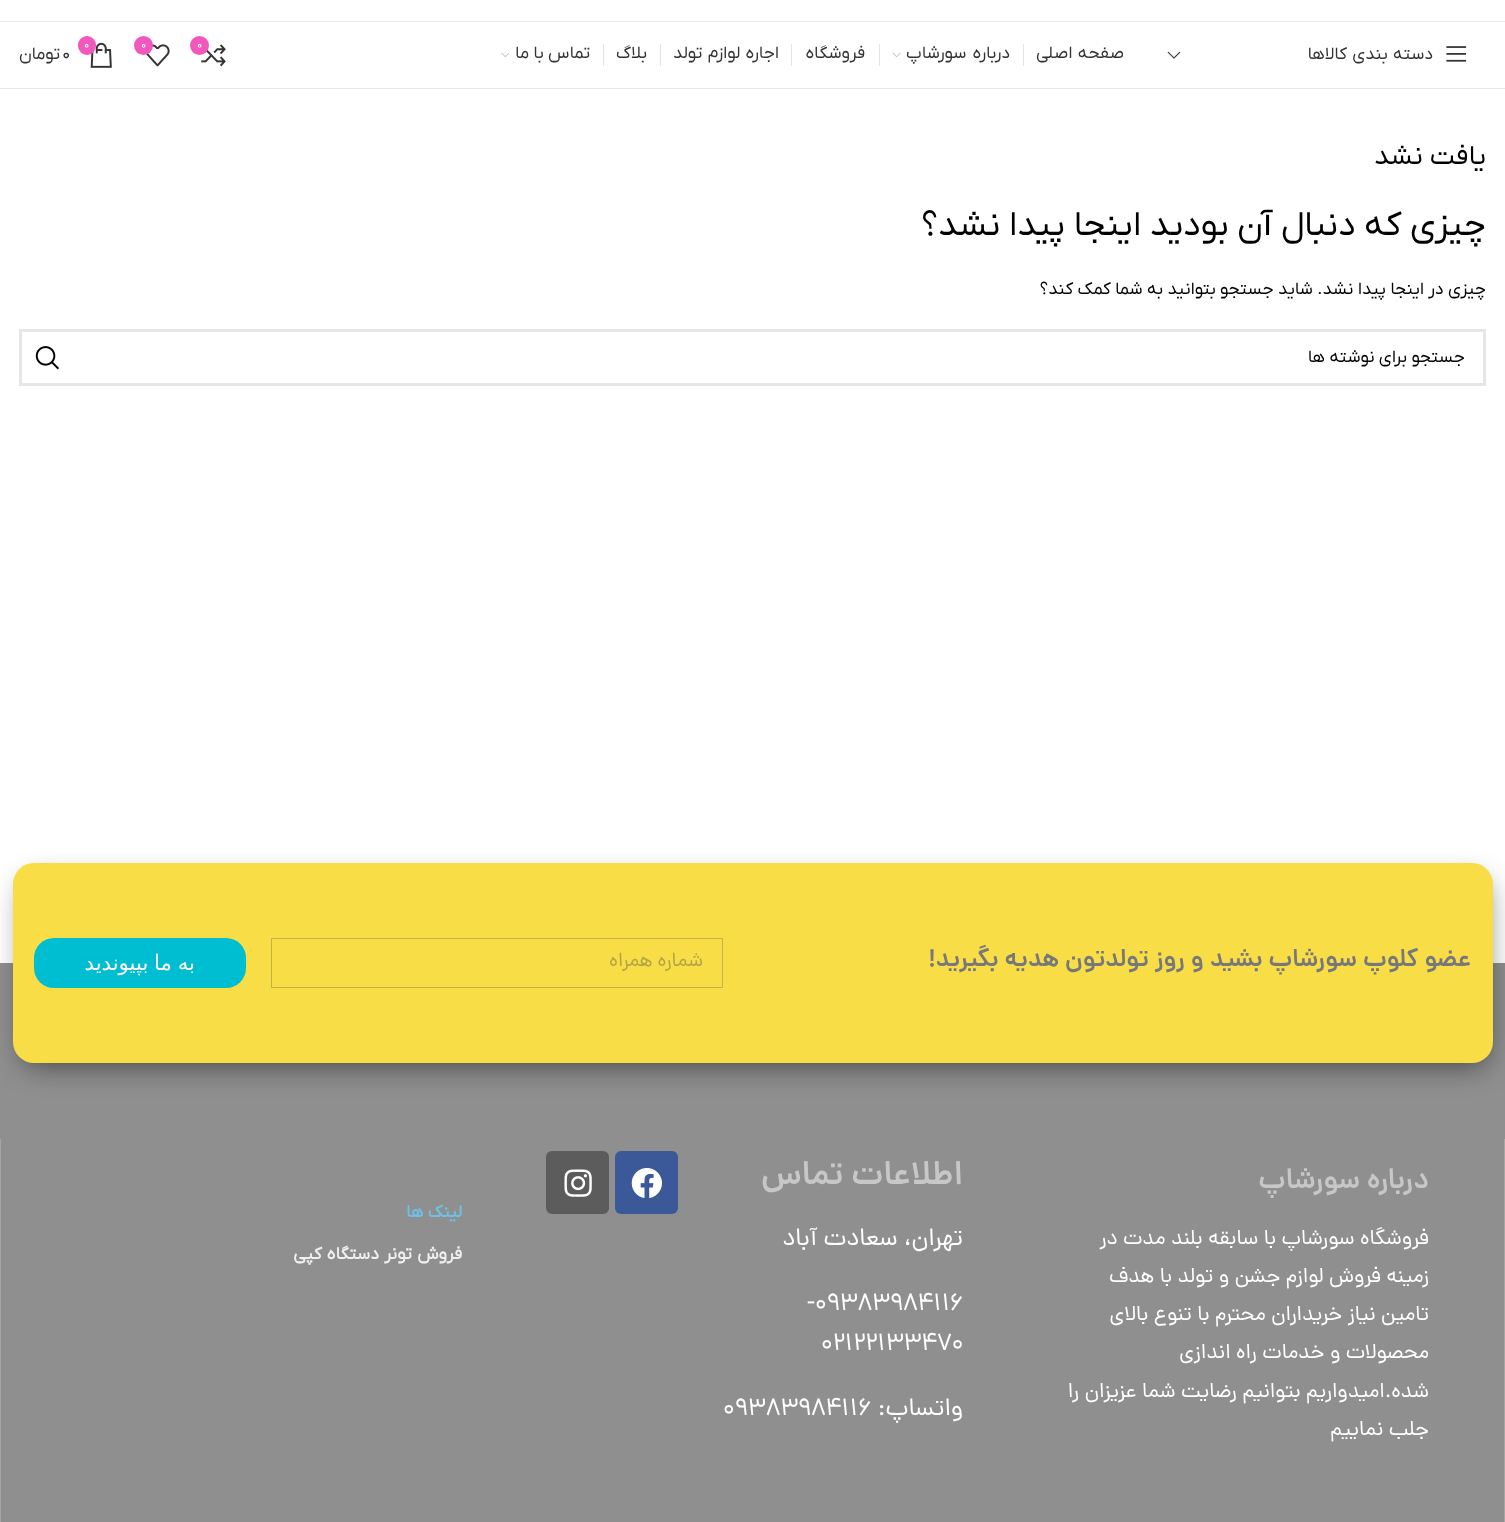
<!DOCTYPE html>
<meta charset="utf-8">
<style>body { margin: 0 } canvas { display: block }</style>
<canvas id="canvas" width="1505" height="1522"></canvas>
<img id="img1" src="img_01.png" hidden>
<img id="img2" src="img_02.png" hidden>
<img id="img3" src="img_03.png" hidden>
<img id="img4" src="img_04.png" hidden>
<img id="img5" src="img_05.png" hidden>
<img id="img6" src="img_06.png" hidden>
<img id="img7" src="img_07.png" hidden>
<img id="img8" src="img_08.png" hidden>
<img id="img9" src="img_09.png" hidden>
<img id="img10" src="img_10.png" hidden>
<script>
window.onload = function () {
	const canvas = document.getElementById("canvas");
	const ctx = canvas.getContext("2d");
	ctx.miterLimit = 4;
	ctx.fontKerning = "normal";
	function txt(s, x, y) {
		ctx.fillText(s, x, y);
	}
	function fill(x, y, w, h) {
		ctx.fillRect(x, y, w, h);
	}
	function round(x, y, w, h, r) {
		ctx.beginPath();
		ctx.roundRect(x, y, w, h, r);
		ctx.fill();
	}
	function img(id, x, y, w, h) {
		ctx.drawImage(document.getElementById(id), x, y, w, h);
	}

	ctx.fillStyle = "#FFFFFF";
	fill(0, 0, 1505, 1522);
	ctx.fillStyle = "#E8E8E8";
	fill(0, 21, 1505, 1);
	fill(0, 88, 1505, 1);
	img("img1", 1446, 46, 21, 16);
	img("img2", 1167, 51, 14, 8);
	ctx.fillStyle = "#E4E4E4";
	fill(1023, 44, 1, 22);
	img("img3", 892, 52, 9, 5);
	fill(879, 44, 1, 22);
	fill(791, 44, 1, 22);
	fill(660, 44, 1, 22);
	fill(603, 44, 1, 22);
	img("img4", 501, 52, 9, 5);
	img("img5", 201, 44, 25, 23);
	ctx.fillStyle = "#F257BE";
	ctx.beginPath();
	ctx.arc(199.5, 45.5, 9.5, 0, Math.PI * 2);
	ctx.fill();
	img("img6", 146, 44, 24, 23);
	ctx.beginPath();
	ctx.arc(143.5, 45.5, 9.5, 0, Math.PI * 2);
	ctx.fill();
	img("img7", 90, 42, 22, 26);
	round(78, 36, 18, 19, 9);
	ctx.strokeStyle = "#E6E6E6";
	ctx.lineWidth = 3;
	ctx.strokeRect(20.5, 330.5, 1464, 54);
	img("img8", 35, 346, 24, 24);
	ctx.fillStyle = "#8F8F8F";
	fill(0, 963, 1505, 559);
	ctx.fillStyle = "rgba(0, 0, 0, 0.5)";
	ctx.filter = "blur(14.5px)";
	ctx.beginPath();
	ctx.roundRect(23, 881, 1465, 185, 14);
	ctx.fill();
	ctx.filter = "none";
	ctx.fillStyle = "#F8DD47";
	round(13, 863, 1480, 200, 21);
	ctx.strokeStyle = "#C4B346";
	ctx.lineWidth = 1;
	ctx.strokeRect(271.5, 938.5, 451, 49);
	ctx.fillStyle = "#00BED1";
	round(34, 938, 212, 50, 20);
	ctx.fillStyle = "#A8A6A5";
	fill(1504, 1139, 1, 383);
	fill(0, 1139, 1, 383);
	ctx.fillStyle = "#3B5998";
	round(615, 1151, 63, 63, 6);
	img("img9", 631, 1168, 31, 30);
	ctx.fillStyle = "#5C5C5C";
	round(546, 1151, 63, 63, 6);
	img("img10", 564, 1169, 28, 28);
	ctx.wordSpacing = "1px";
	ctx.direction = "rtl";
	ctx.font = "17.5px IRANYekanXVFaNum";
	ctx.fillStyle = "#333333";
	txt("دسته بندی کالاها", 1433, 59);
	txt("صفحه اصلی", 1124, 58);
	ctx.wordSpacing = "2px";
	txt("درباره سورشاپ", 1010, 58);
	ctx.wordSpacing = "0px";
	txt("فروشگاه", 865, 58);
	ctx.wordSpacing = "1px";
	txt("اجاره لوازم تولد", 779, 58);
	ctx.wordSpacing = "0px";
	txt("بلاگ", 647, 58);
	txt("تماس با ما", 590, 58);
	ctx.direction = "ltr";
	ctx.font = "11px IRANYekanXVFaNum";
	ctx.fillStyle = "#FFFFFF";
	txt("0", 197, 48);
	txt("0", 141, 48);
	txt("0", 84, 48);
	ctx.font = "17.5px IRANYekanXVFaNum";
	ctx.fillStyle = "#333333";
	txt("0", 62, 59);
	ctx.direction = "rtl";
	txt("تومان", 60, 59);
	ctx.font = "27.5px IRANYekanXVFaNum";
	ctx.fillStyle = "#000000";
	txt("یافت نشد", 1486, 164);
	ctx.font = "35px IRANYekanXVFaNum";
	txt("چیزی که دنبال آن بودید اینجا پیدا نشد؟", 1486, 235);
	ctx.font = "17.5px IRANYekanXVFaNum";
	txt("چیزی در اینجا پیدا نشد. شاید جستجو بتوانید به شما کمک کند؟", 1486, 294);
	txt("جستجو برای نوشته ها", 1465, 362);
	ctx.font = "600 25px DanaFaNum";
	ctx.fillStyle = "#76787C";
	txt("عضو کلوپ سورشاپ بشید و روز تولدتون هدیه بگیرید!", 1471, 966);
	ctx.font = "20px DanaFaNum";
	ctx.fillStyle = "#B2A545";
	txt("شماره همراه", 703, 966);
	ctx.wordSpacing = "-1px";
	ctx.font = "21.25px DejaVu Sans";
	ctx.fillStyle = "#FFF7F1";
	txt("به ما بپیوندید", 195, 970);
	ctx.wordSpacing = "0px";
	ctx.font = "600 28.75px DanaFaNum";
	ctx.fillStyle = "#C7C7C7";
	txt("درباره سورشاپ", 1429, 1188);
	ctx.font = "21.25px DanaFaNum";
	ctx.fillStyle = "#FFFFFF";
	txt("فروشگاه سورشاپ با سابقه بلند مدت در", 1429, 1244);
	txt("زمینه فروش لوازم جشن و تولد با هدف", 1429, 1282);
	txt("تامین نیاز خریداران محترم با تنوع بالای", 1429, 1320);
	txt("محصولات و خدمات راه اندازی", 1429, 1358);
	txt("شده.امیدواریم بتوانیم رضایت شما عزیزان را", 1429, 1397);
	txt("جلب نماییم", 1429, 1435);
	ctx.font = "600 33.75px DanaFaNum";
	ctx.fillStyle = "#C7C7C7";
	txt("اطلاعات تماس", 963, 1184);
	ctx.font = "25px DanaFaNum";
	ctx.fillStyle = "#FFFFFF";
	txt("تهران، سعادت آباد", 963, 1245);
	ctx.direction = "ltr";
	txt("-09383984116", 807, 1310);
	txt("02122133470", 821, 1350);
	ctx.direction = "rtl";
	txt("واتساپ:", 963, 1415);
	ctx.direction = "ltr";
	txt("۰۹۳۸۳۹۸۴۱۱۶", 723, 1415);
	ctx.direction = "rtl";
	ctx.font = "bold 17.5px IRANYekanXVFaNum";
	ctx.fillStyle = "#6EC1E4";
	txt("لینک ها", 462, 1217);
	ctx.wordSpacing = "1px";
	ctx.fillStyle = "#F0F0F0";
	txt("فروش تونر دستگاه کپی", 462, 1259);
};
</script>
